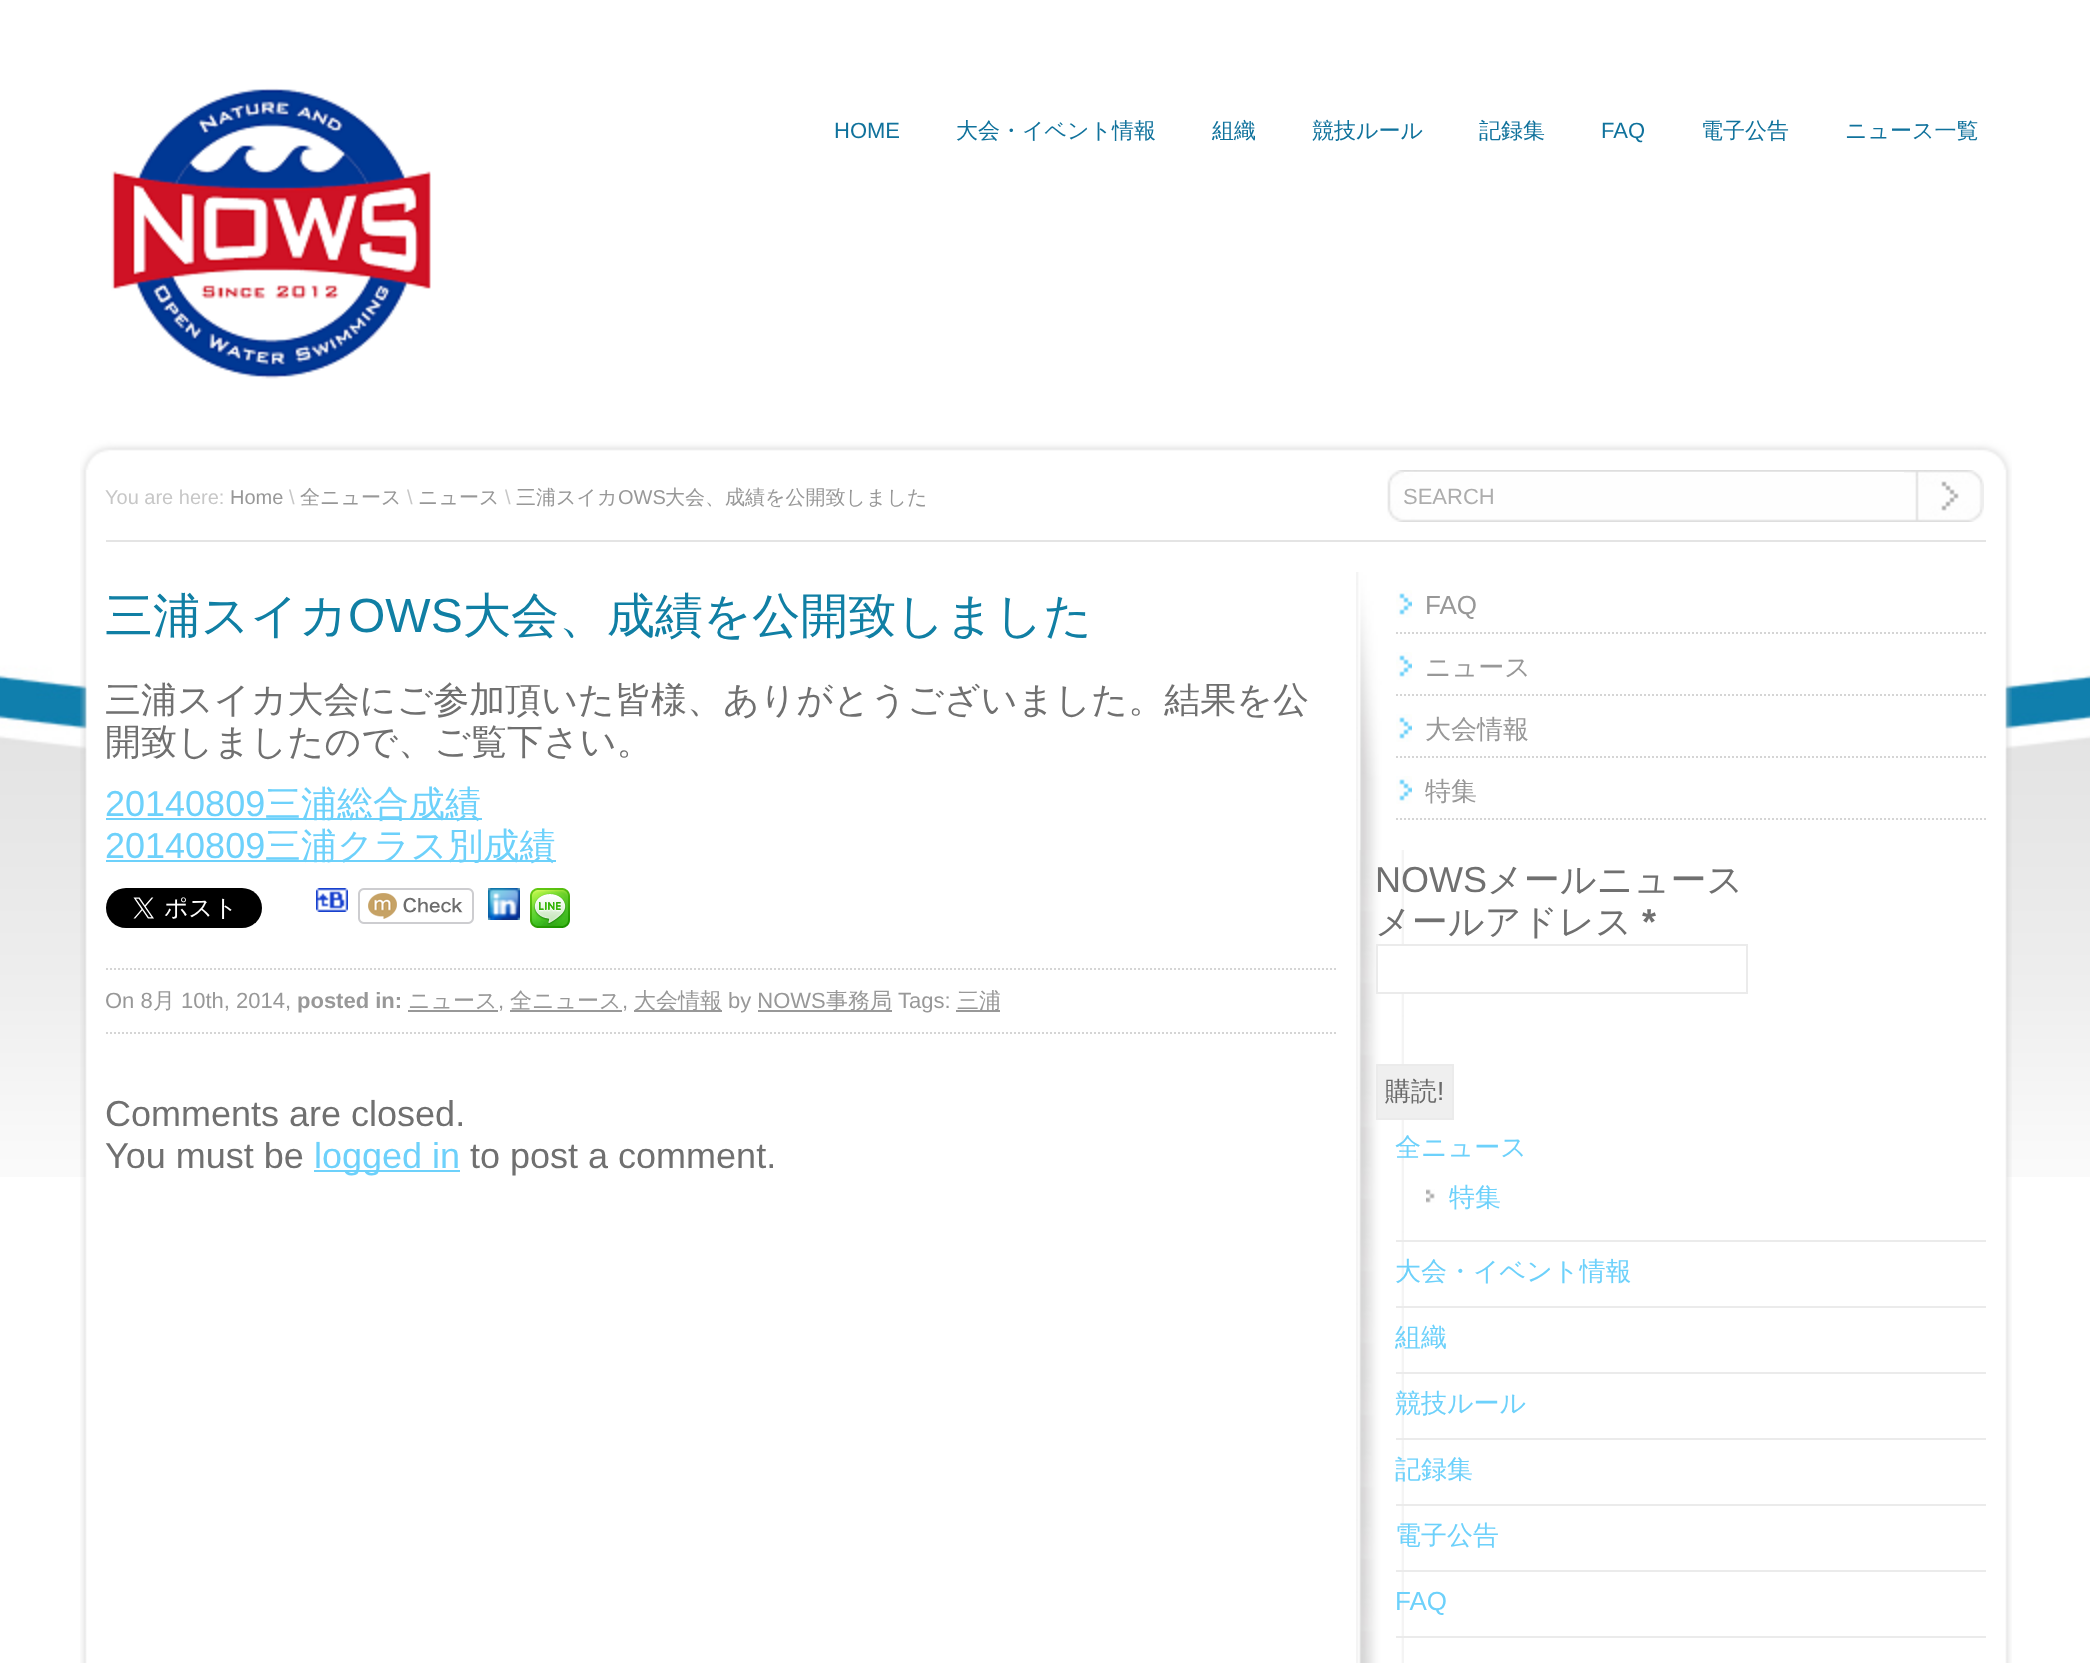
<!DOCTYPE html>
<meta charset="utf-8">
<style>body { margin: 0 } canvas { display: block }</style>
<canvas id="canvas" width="2090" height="1663"></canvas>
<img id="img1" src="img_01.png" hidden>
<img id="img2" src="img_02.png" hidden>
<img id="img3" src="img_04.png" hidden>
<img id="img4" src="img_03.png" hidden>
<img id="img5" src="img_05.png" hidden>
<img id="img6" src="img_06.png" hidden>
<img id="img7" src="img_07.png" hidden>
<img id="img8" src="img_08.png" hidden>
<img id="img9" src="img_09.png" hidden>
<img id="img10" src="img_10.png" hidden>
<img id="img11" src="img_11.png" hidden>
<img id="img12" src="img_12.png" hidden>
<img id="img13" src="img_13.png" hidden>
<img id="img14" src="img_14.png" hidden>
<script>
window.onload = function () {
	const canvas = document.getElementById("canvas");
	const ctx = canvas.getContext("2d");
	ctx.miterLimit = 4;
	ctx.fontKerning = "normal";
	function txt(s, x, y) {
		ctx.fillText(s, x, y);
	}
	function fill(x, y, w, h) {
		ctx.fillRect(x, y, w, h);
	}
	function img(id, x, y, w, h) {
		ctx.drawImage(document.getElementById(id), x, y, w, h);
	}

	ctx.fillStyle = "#FFFFFF";
	fill(0, 0, 2090, 1663);
	img("img1", 111, 88, 320, 291);
	img("img2", 0, 491, 2090, 686);
	img("img3", 80, 469, 1932, 1194);
	img("img4", 80, 440, 1932, 30);
	ctx.fillStyle = "#E4E4E4";
	fill(106, 540, 1880, 2);
	img("img5", 1387, 470, 597, 52);
	ctx.fillStyle = "#FFFFFF";
	fill(1404, 472, 500, 1);
	ctx.fillStyle = "#6DD1FB";
	fill(106, 818, 376, 2);
	fill(106, 860, 450, 2);
	img("img6", 106, 888, 156, 40);
	img("img7", 316, 888, 32, 24);
	img("img8", 358, 888, 116, 36);
	img("img9", 488, 888, 32, 32);
	img("img10", 530, 888, 40, 40);
	ctx.beginPath();
	ctx.moveTo(106, 969);
	ctx.lineTo(1336, 969);
	ctx.strokeStyle = "#D5D5D5";
	ctx.lineWidth = 2;
	ctx.setLineDash([2, 2]);
	ctx.stroke();
	ctx.beginPath();
	ctx.moveTo(106, 1033);
	ctx.lineTo(1336, 1033);
	ctx.stroke();
	ctx.fillStyle = "#989898";
	fill(408, 1010, 90, 2);
	fill(510, 1010, 112, 2);
	fill(634, 1010, 88, 2);
	fill(758, 1010, 134, 2);
	fill(956, 1010, 44, 2);
	ctx.fillStyle = "#6DD1FB";
	fill(314, 1170, 146, 2);
	img("img11", 1356, 572, 48, 1091);
	img("img12", 1359, 572, 45, 278);
	ctx.beginPath();
	ctx.moveTo(1396, 633);
	ctx.lineTo(1986, 633);
	ctx.stroke();
	img("img13", 1396, 590, 16, 28);
	ctx.beginPath();
	ctx.moveTo(1396, 695);
	ctx.lineTo(1986, 695);
	ctx.stroke();
	img("img13", 1396, 652, 16, 28);
	ctx.beginPath();
	ctx.moveTo(1396, 757);
	ctx.lineTo(1986, 757);
	ctx.stroke();
	img("img13", 1396, 714, 16, 28);
	ctx.beginPath();
	ctx.moveTo(1396, 819);
	ctx.lineTo(1986, 819);
	ctx.stroke();
	img("img13", 1396, 776, 16, 28);
	ctx.fillStyle = "#FFFFFF";
	fill(1378, 946, 26, 46);
	ctx.strokeStyle = "#EBEBEB";
	ctx.setLineDash([]);
	ctx.strokeRect(1377, 945, 370, 48);
	ctx.fillStyle = "#EFEFEF";
	ctx.beginPath();
	ctx.rect(1377, 1065, 76, 54);
	ctx.fill();
	ctx.stroke();
	ctx.fillStyle = "#EBEBEB";
	fill(1396, 1240, 590, 2);
	img("img14", 1426, 1189, 9, 14);
	fill(1396, 1306, 590, 2);
	fill(1396, 1372, 590, 2);
	fill(1396, 1438, 590, 2);
	fill(1396, 1504, 590, 2);
	fill(1396, 1570, 590, 2);
	fill(1396, 1636, 590, 2);
	ctx.font = "22px Liberation Sans";
	ctx.fillStyle = "#10729C";
	txt("HOME", 834, 138);
	ctx.font = "500 22px WenQuanYi Zen Hei";
	txt("大会・イベント情報", 956, 138);
	txt("組織", 1212, 138);
	txt("競技ルール", 1312, 138);
	txt("記録集", 1479, 138);
	ctx.font = "22px Liberation Sans";
	txt("FAQ", 1601, 138);
	ctx.font = "500 22px WenQuanYi Zen Hei";
	txt("電子公告", 1701, 138);
	txt("ニュース一覧", 1845, 138);
	ctx.font = "20px Liberation Sans";
	ctx.fillStyle = "#C7C7C7";
	txt("You are here:", 105, 504);
	ctx.fillStyle = "#989898";
	txt("Home", 230, 504);
	ctx.fillStyle = "#C7C7C7";
	txt("\\", 289, 504);
	ctx.font = "500 20px WenQuanYi Zen Hei";
	ctx.fillStyle = "#989898";
	txt("全ニュース", 300, 504);
	ctx.font = "20px Liberation Sans";
	ctx.fillStyle = "#C7C7C7";
	txt("\\", 407, 504);
	ctx.font = "500 20px WenQuanYi Zen Hei";
	ctx.fillStyle = "#989898";
	txt("ニュース", 418, 504);
	ctx.font = "20px Liberation Sans";
	ctx.fillStyle = "#C7C7C7";
	txt("\\", 505, 504);
	ctx.font = "500 20px WenQuanYi Zen Hei";
	ctx.fillStyle = "#989898";
	txt("三浦スイカ", 516, 504);
	ctx.font = "20px Liberation Sans";
	txt("OWS", 618, 504);
	ctx.font = "500 20px WenQuanYi Zen Hei";
	txt("大会、成績を公開致しました", 665, 504);
	ctx.font = "22px Liberation Sans";
	ctx.fillStyle = "#ADADAD";
	txt("SEARCH", 1403, 504);
	ctx.font = "500 48px WenQuanYi Zen Hei";
	ctx.fillStyle = "#107FA4";
	txt("三浦スイカ", 105, 632);
	ctx.font = "48px Liberation Sans";
	txt("OWS", 348, 632);
	ctx.font = "500 48px WenQuanYi Zen Hei";
	txt("大会、成績を公開致しました", 463, 632);
	ctx.font = "500 36px WenQuanYi Zen Hei";
	ctx.fillStyle = "#707070";
	txt("三浦スイカ大会にご参加頂いた皆様、ありがとうございました。結果を公", 105, 712);
	txt("開致しましたので、ご覧下さい。", 105, 754);
	ctx.font = "36px Liberation Sans";
	ctx.fillStyle = "#6DD1FB";
	txt("20140809", 105, 816);
	ctx.font = "500 36px WenQuanYi Zen Hei";
	txt("三浦総合成績", 265, 816);
	ctx.font = "36px Liberation Sans";
	txt("20140809", 105, 858);
	ctx.font = "500 36px WenQuanYi Zen Hei";
	txt("三浦クラス別成績", 265, 858);
	ctx.font = "22px Liberation Sans";
	ctx.fillStyle = "#989898";
	txt("On 8", 105, 1008);
	ctx.font = "500 22px WenQuanYi Zen Hei";
	txt("月", 153, 1008);
	ctx.font = "22px Liberation Sans";
	txt("10th, 2014,", 181, 1008);
	ctx.font = "bold 22px Liberation Sans";
	txt("posted in:", 297, 1008);
	ctx.font = "500 22px WenQuanYi Zen Hei";
	txt("ニュース", 408, 1008);
	ctx.font = "22px Liberation Sans";
	txt(",", 498, 1008);
	ctx.font = "500 22px WenQuanYi Zen Hei";
	txt("全ニュース", 510, 1008);
	ctx.font = "22px Liberation Sans";
	txt(",", 622, 1008);
	ctx.font = "500 22px WenQuanYi Zen Hei";
	txt("大会情報", 634, 1008);
	ctx.font = "22px Liberation Sans";
	txt("by NOWS", 728, 1008);
	ctx.font = "500 22px WenQuanYi Zen Hei";
	txt("事務局", 826, 1008);
	ctx.font = "22px Liberation Sans";
	txt("Tags:", 898, 1008);
	ctx.font = "500 22px WenQuanYi Zen Hei";
	txt("三浦", 957, 1008);
	ctx.font = "36px Liberation Sans";
	ctx.fillStyle = "#707070";
	txt("Comments are closed.", 105, 1126);
	txt("You must be", 105, 1168);
	ctx.fillStyle = "#6DD1FB";
	txt("logged in", 314, 1168);
	ctx.fillStyle = "#707070";
	txt("to post a comment.", 470, 1168);
	ctx.font = "26px Liberation Sans";
	ctx.fillStyle = "#989898";
	txt("FAQ", 1425, 614);
	ctx.font = "500 26px WenQuanYi Zen Hei";
	txt("ニュース", 1425, 676);
	txt("大会情報", 1425, 738);
	txt("特集", 1425, 800);
	ctx.font = "36px Liberation Sans";
	ctx.fillStyle = "#707070";
	txt("NOWS", 1375, 892);
	ctx.font = "500 36px WenQuanYi Zen Hei";
	txt("メールニュース", 1487, 892);
	txt("メールアドレス", 1375, 934);
	ctx.font = "bold 36px Liberation Sans";
	txt("*", 1642, 934);
	ctx.font = "500 26px WenQuanYi Zen Hei";
	ctx.fillStyle = "#696969";
	txt("購読", 1385, 1100);
	ctx.font = "26px Liberation Sans";
	txt("!", 1437, 1100);
	ctx.font = "500 26px WenQuanYi Zen Hei";
	ctx.fillStyle = "#6DD1FB";
	txt("全ニュース", 1395, 1156);
	txt("特集", 1449, 1206);
	txt("大会・イベント情報", 1395, 1280);
	txt("組織", 1395, 1346);
	txt("競技ルール", 1395, 1412);
	txt("記録集", 1395, 1478);
	txt("電子公告", 1395, 1544);
	ctx.font = "26px Liberation Sans";
	txt("FAQ", 1395, 1610);
};
</script>
